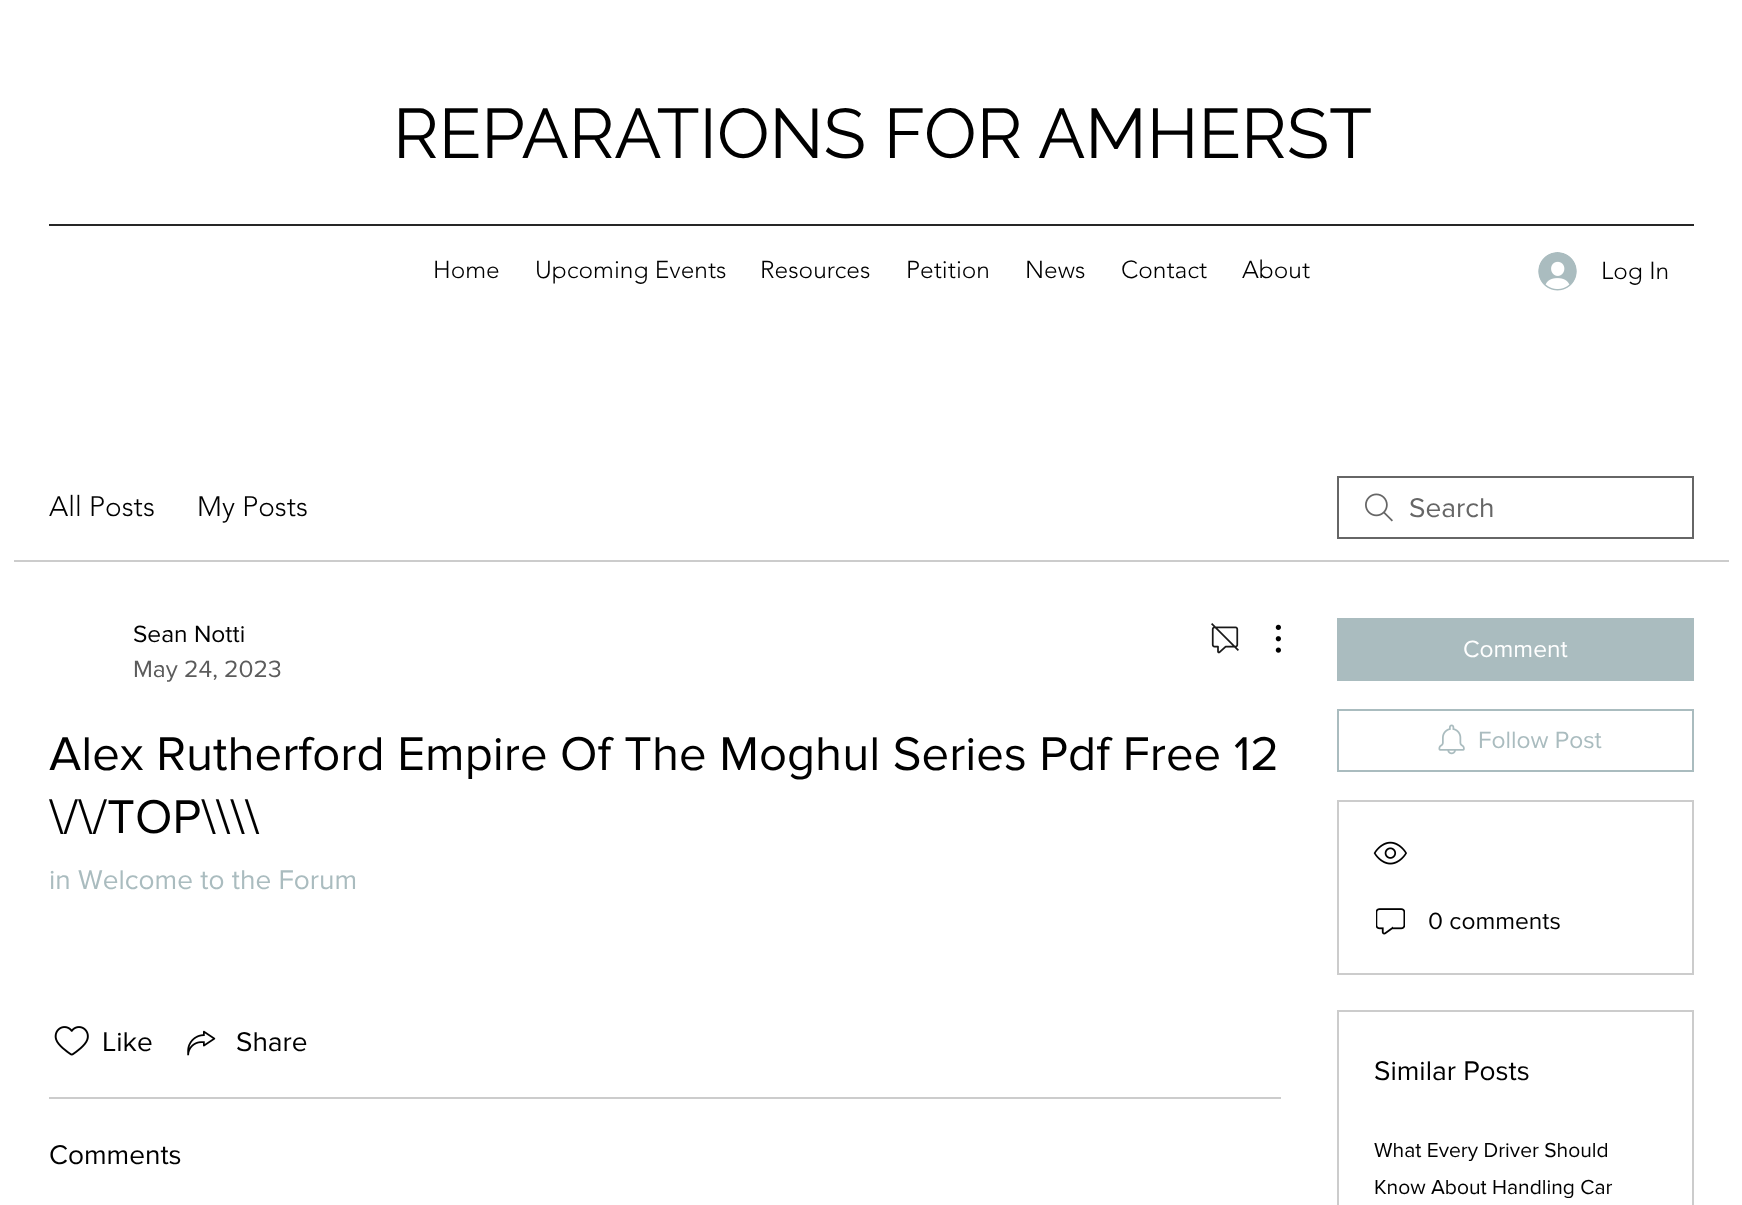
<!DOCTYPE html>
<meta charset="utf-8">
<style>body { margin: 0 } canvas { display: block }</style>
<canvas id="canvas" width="1742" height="1205"></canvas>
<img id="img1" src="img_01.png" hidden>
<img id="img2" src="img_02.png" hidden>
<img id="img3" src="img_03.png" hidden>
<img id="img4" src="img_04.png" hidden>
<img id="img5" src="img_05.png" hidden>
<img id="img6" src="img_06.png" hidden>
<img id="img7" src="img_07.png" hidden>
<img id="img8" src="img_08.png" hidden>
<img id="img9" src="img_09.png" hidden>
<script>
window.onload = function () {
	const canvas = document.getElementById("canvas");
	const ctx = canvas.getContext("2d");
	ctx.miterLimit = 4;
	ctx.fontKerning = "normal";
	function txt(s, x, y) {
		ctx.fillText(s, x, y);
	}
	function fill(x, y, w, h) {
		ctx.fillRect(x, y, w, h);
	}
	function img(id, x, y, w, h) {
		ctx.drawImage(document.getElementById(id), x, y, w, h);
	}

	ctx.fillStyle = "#FFFFFF";
	fill(0, 0, 1742, 1205);
	ctx.fillStyle = "#262626";
	fill(49, 224, 1645, 2);
	img("img1", 1538, 252, 39, 39);
	ctx.fillStyle = "#CCCCCC";
	fill(14, 560, 1715, 2);
	img("img2", 1365, 493, 28, 29);
	ctx.strokeStyle = "#666666";
	ctx.lineWidth = 2;
	ctx.strokeRect(1338, 477, 355, 61);
	img("img3", 1211, 623, 28, 31);
	img("img4", 1275, 624, 6, 29);
	img("img5", 54, 1026, 35, 30);
	img("img6", 187, 1030, 29, 26);
	fill(49, 1097, 1232, 2);
	ctx.fillStyle = "#AABCBF";
	fill(1337, 618, 357, 63);
	ctx.strokeStyle = "#AABCBF";
	ctx.strokeRect(1338, 710, 355, 61);
	img("img7", 1438, 724, 27, 31);
	ctx.strokeStyle = "#CCCCCC";
	ctx.strokeRect(1338, 801, 355, 173);
	img("img8", 1373, 841, 34, 24);
	img("img9", 1376, 908, 29, 27);
	ctx.strokeRect(1338, 1011, 355, 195);
	ctx.font = "70px Raleway";
	ctx.fillStyle = "#000000";
	txt("REPARATIONS FOR AMHERST", 393, 158);
	ctx.font = "300 24.5px 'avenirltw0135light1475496'";
	txt("Home", 433, 278);
	txt("Upcoming Events", 535, 278);
	txt("Resources", 760, 278);
	txt("Petition", 906, 278);
	txt("News", 1025, 278);
	txt("Contact", 1121, 278);
	txt("About", 1242, 278);
	txt("Log In", 1601, 279);
	ctx.font = "300 28px 'avenirltw0135light1475496'";
	txt("All Posts", 49, 516);
	txt("My Posts", 197, 516);
	ctx.font = "28px 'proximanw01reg'";
	ctx.fillStyle = "#666666";
	txt("Search", 1409, 517);
	ctx.font = "24.5px 'proximanw01reg'";
	ctx.fillStyle = "#000000";
	txt("Sean Notti", 133, 642);
	ctx.fillStyle = "#5C5C5C";
	txt("May 24, 2023", 133, 677);
	ctx.font = "49px 'proximanw01reg'";
	ctx.fillStyle = "#000000";
	txt("Alex Rutherford Empire Of The Moghul Series Pdf Free 12", 49, 770);
	txt("\\/\\/TOP\\\\\\\\", 49, 833);
	ctx.font = "28px 'proximanw01reg'";
	ctx.fillStyle = "#AABCBF";
	txt("in Welcome to the Forum", 49, 889);
	ctx.fillStyle = "#000000";
	txt("Like", 102, 1051);
	txt("Share", 236, 1051);
	txt("Comments", 49, 1164);
	ctx.font = "24.5px 'proximanw01reg'";
	ctx.fillStyle = "#FFFFFF";
	txt("Comment", 1463, 657);
	ctx.fillStyle = "#AABCBF";
	txt("Follow Post", 1478, 748);
	ctx.fillStyle = "#000000";
	txt("0 comments", 1428, 929);
	ctx.font = "28px 'proximanw01reg'";
	txt("Similar Posts", 1374, 1080);
	ctx.font = "21px 'proximanw01reg'";
	txt("What Every Driver Should", 1374, 1157);
	txt("Know About Handling Car", 1374, 1194);
};
</script>
